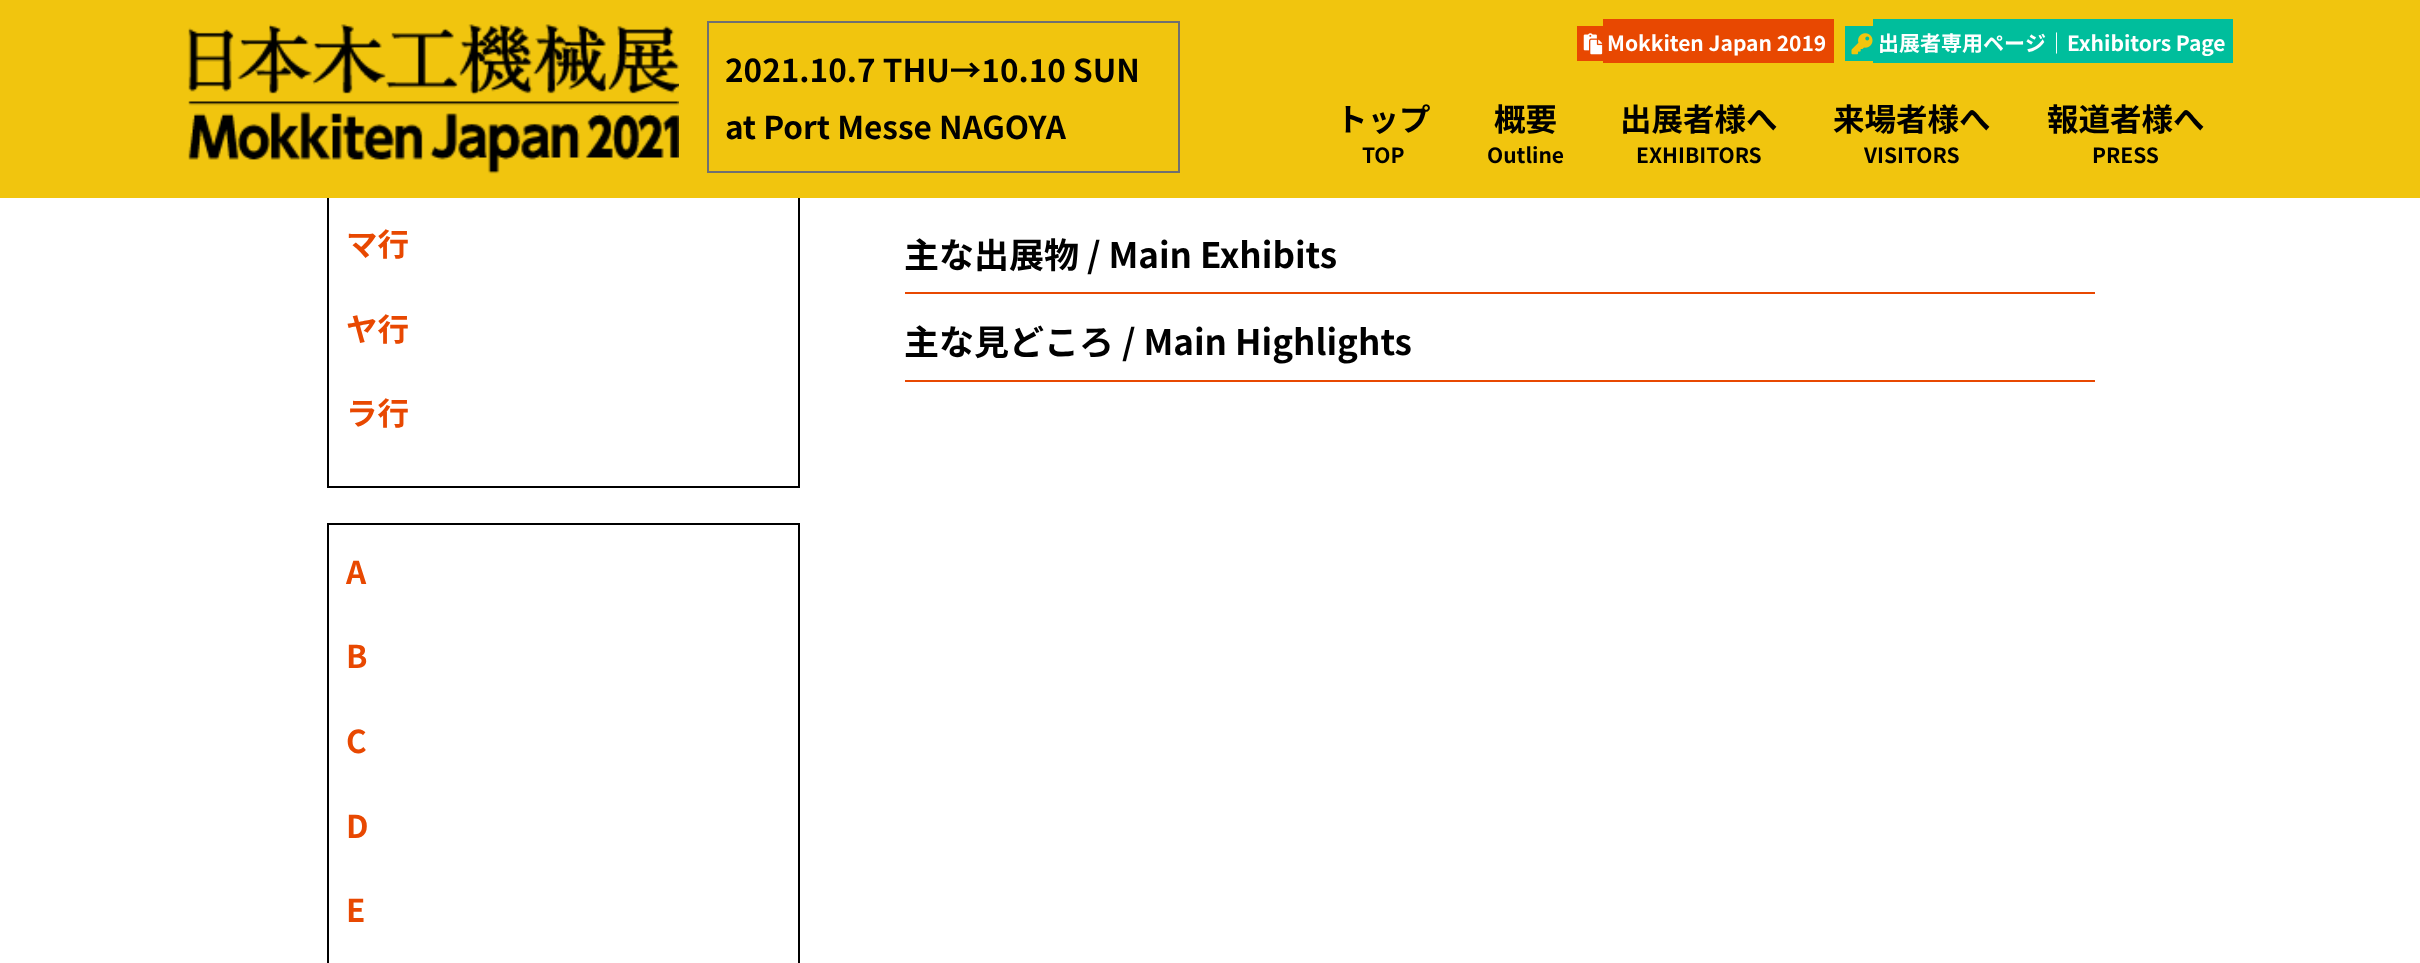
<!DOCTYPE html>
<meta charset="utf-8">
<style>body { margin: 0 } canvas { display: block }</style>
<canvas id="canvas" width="2420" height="963"></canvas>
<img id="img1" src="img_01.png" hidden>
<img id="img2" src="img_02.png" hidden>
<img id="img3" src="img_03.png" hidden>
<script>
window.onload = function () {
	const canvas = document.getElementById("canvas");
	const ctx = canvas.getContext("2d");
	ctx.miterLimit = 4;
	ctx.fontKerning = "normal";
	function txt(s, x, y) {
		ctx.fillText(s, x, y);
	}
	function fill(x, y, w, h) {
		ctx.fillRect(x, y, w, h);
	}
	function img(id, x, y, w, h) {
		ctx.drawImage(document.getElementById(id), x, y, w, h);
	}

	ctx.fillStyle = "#FFFFFF";
	fill(0, 0, 2420, 963);
	ctx.strokeStyle = "#000000";
	ctx.lineWidth = 2;
	ctx.strokeRect(328, -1, 471, 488);
	ctx.fillStyle = "#F1C50E";
	fill(0, 0, 2420, 198);
	img("img1", 188, 24, 491, 150);
	ctx.strokeStyle = "#707070";
	ctx.strokeRect(708, 22, 471, 150);
	ctx.fillStyle = "#E84801";
	fill(1577, 26, 26, 35);
	fill(1603, 19, 231, 44);
	img("img2", 1583, 33, 20, 22);
	ctx.fillStyle = "#00BE9C";
	fill(1845, 26, 28, 35);
	fill(1873, 19, 360, 44);
	img("img3", 1851, 33, 22, 22);
	ctx.strokeStyle = "#000000";
	ctx.strokeRect(328, 524, 471, 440);
	ctx.fillStyle = "#E84801";
	fill(905, 292, 1190, 2);
	fill(905, 380, 1190, 2);
	ctx.font = "bold 31.5px Noto Sans JP";
	ctx.fillStyle = "#000000";
	txt("2021.10.7 THU→10.10 SUN", 725, 82);
	txt("at Port Messe NAGOYA", 725, 139);
	ctx.font = "bold 21px Noto Sans JP";
	ctx.fillStyle = "#FFFFFF";
	txt("Mokkiten Japan 2019", 1607, 51);
	txt("出展者専用ページ｜Exhibitors Page", 1878, 51);
	ctx.font = "bold 31.5px Noto Sans JP";
	ctx.fillStyle = "#000000";
	txt("トップ", 1336, 131);
	ctx.font = "bold 21px Noto Sans JP";
	txt("TOP", 1362, 163);
	ctx.font = "bold 31.5px Noto Sans JP";
	txt("概要", 1494, 131);
	ctx.font = "bold 21px Noto Sans JP";
	txt("Outline", 1487, 163);
	ctx.font = "bold 31.5px Noto Sans JP";
	txt("出展者様へ", 1620, 131);
	ctx.font = "bold 21px Noto Sans JP";
	txt("EXHIBITORS", 1636, 163);
	ctx.font = "bold 31.5px Noto Sans JP";
	txt("来場者様へ", 1833, 131);
	ctx.font = "bold 21px Noto Sans JP";
	txt("VISITORS", 1864, 163);
	ctx.font = "bold 31.5px Noto Sans JP";
	txt("報道者様へ", 2047, 131);
	ctx.font = "bold 21px Noto Sans JP";
	txt("PRESS", 2092, 163);
	ctx.font = "bold 31.5px Noto Sans JP";
	ctx.fillStyle = "#E84801";
	txt("マ行", 346, 256);
	txt("ヤ行", 346, 341);
	txt("ラ行", 346, 425);
	txt("A", 346, 584);
	txt("B", 346, 668);
	txt("C", 346, 753);
	txt("D", 346, 838);
	txt("E", 346, 922);
	ctx.font = "bold 35px Noto Sans JP";
	ctx.fillStyle = "#000000";
	txt("主な出展物 / Main Exhibits", 904, 268);
	txt("主な見どころ / Main Highlights", 904, 355);
};
</script>
